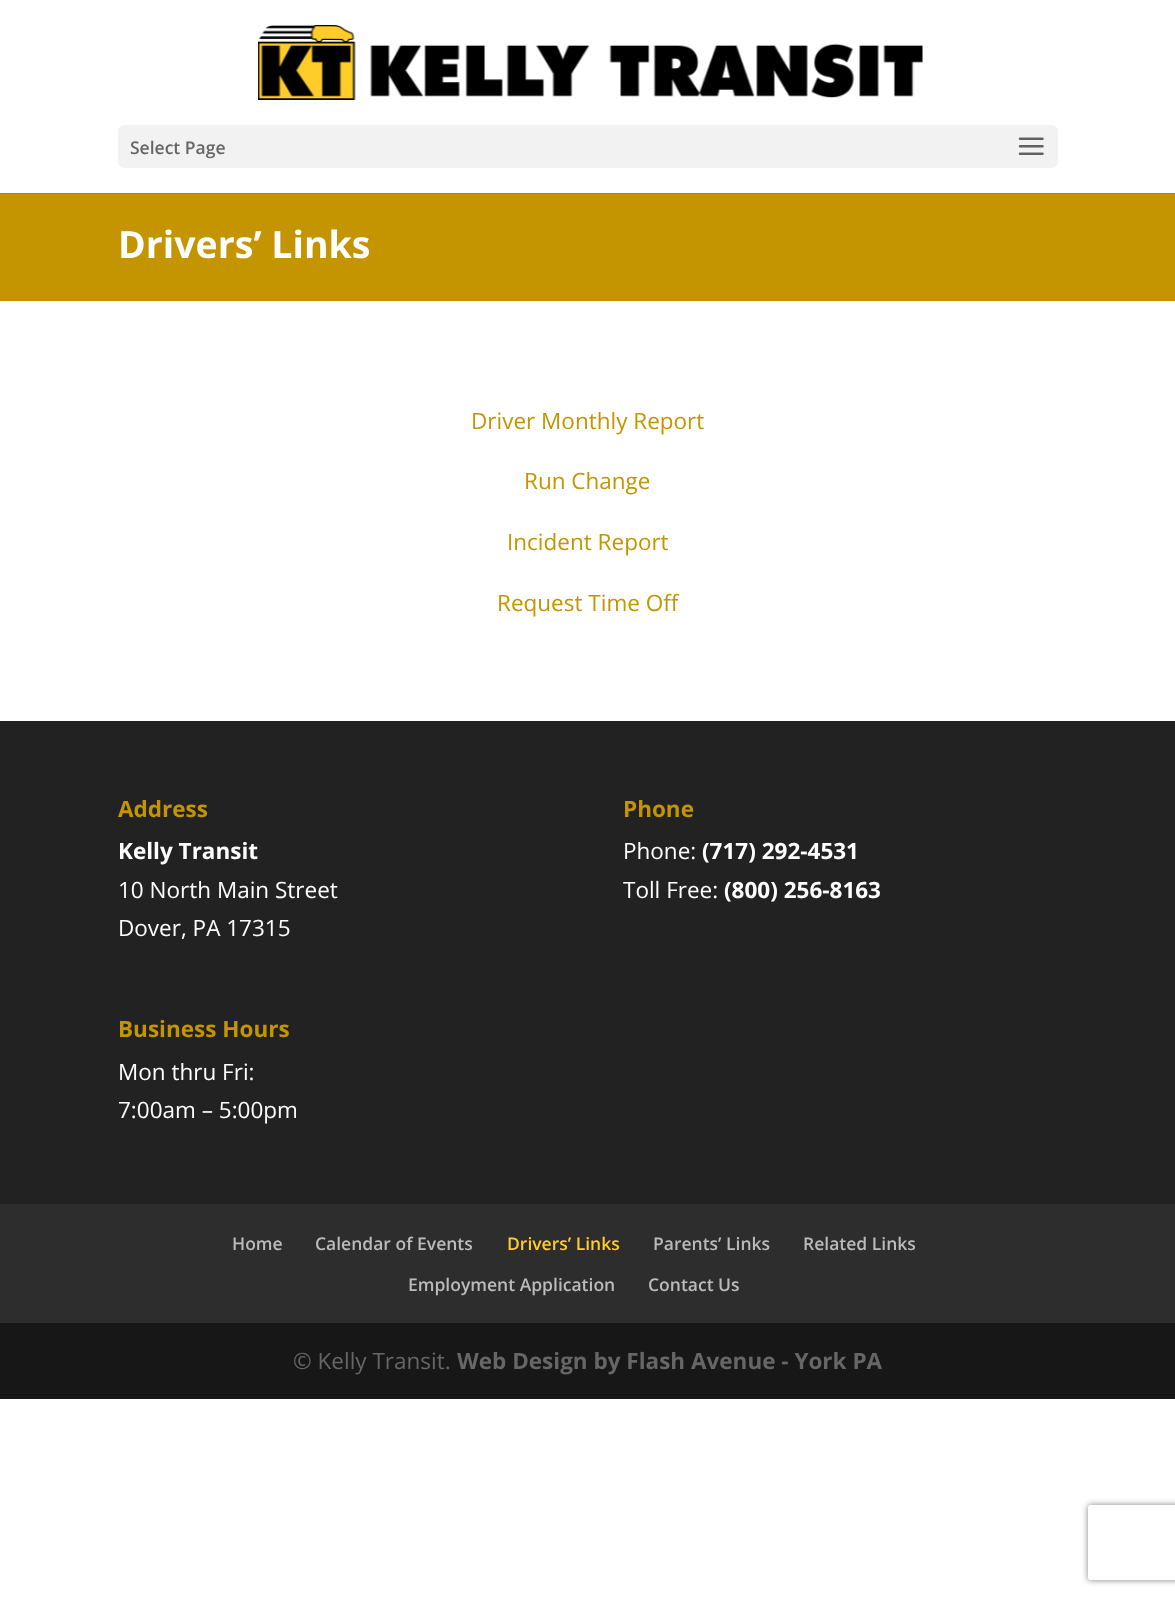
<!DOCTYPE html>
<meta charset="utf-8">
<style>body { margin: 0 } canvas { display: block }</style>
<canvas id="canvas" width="1175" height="1597"></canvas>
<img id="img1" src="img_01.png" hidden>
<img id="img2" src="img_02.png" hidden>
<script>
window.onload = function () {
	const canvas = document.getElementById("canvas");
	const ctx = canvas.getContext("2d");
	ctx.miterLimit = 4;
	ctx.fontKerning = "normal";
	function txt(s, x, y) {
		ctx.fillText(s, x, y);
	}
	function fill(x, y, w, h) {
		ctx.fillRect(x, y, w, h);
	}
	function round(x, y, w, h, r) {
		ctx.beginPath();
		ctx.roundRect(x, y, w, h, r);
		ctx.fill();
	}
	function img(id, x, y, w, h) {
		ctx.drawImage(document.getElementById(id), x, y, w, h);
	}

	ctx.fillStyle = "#FFFFFF";
	fill(0, 0, 1175, 1597);
	ctx.fillStyle = "#B08600";
	fill(0, 193, 1175, 1);
	img("img1", 258, 25, 665, 75);
	ctx.fillStyle = "#F2F2F2";
	round(118, 125, 940, 43, 6);
	img("img2", 1018, 137, 26, 18);
	ctx.fillStyle = "#C49500";
	fill(0, 194, 1175, 107);
	ctx.fillStyle = "#222222";
	fill(0, 721, 1175, 483);
	ctx.fillStyle = "#2D2D2D";
	fill(0, 1204, 1175, 119);
	ctx.fillStyle = "#171717";
	fill(0, 1323, 1175, 76);
	ctx.save();
	ctx.beginPath();
	ctx.moveTo(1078, 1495);
	ctx.lineTo(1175, 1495);
	ctx.lineTo(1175, 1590);
	ctx.lineTo(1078, 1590);
	ctx.closePath();
	ctx.moveTo(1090.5, 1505);
	ctx.lineTo(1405.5, 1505);
	ctx.bezierCurveTo(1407, 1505, 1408, 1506, 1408, 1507.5);
	ctx.lineTo(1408, 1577.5);
	ctx.bezierCurveTo(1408, 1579, 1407, 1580, 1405.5, 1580);
	ctx.lineTo(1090.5, 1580);
	ctx.bezierCurveTo(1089, 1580, 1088, 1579, 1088, 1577.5);
	ctx.lineTo(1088, 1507.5);
	ctx.bezierCurveTo(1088, 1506, 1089, 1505, 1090.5, 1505);
	ctx.closePath();
	ctx.clip("evenodd");
	ctx.fillStyle = "#808080";
	ctx.filter = "blur(3px)";
	ctx.beginPath();
	ctx.roundRect(1088, 1505, 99, 75, 2.5);
	ctx.fill();
	ctx.filter = "none";
	ctx.restore();
	ctx.font = "600 17.5px Open Sans";
	ctx.fillStyle = "#666666";
	txt("Select Page", 130, 154);
	ctx.font = "bold 37.5px Open Sans";
	ctx.fillStyle = "#FFFFFF";
	txt("Drivers’ Links", 118, 258);
	ctx.font = "22.5px Open Sans";
	ctx.fillStyle = "#C49500";
	txt("Driver Monthly Report", 471, 429);
	txt("Run Change", 524, 489);
	txt("Incident Report", 507, 550);
	txt("Request Time Off", 497, 611);
	ctx.font = "bold 22.5px Open Sans";
	txt("Address", 118, 817);
	ctx.fillStyle = "#FFFFFF";
	txt("Kelly Transit", 118, 859);
	ctx.font = "22.5px Open Sans";
	txt("10 North Main Street", 118, 898);
	txt("Dover, PA 17315", 118, 936);
	ctx.font = "bold 22.5px Open Sans";
	ctx.fillStyle = "#C49500";
	txt("Phone", 623, 817);
	ctx.font = "22.5px Open Sans";
	ctx.fillStyle = "#FFFFFF";
	txt("Phone:", 623, 859);
	ctx.font = "bold 22.5px Open Sans";
	txt("(717) 292-4531", 702, 859);
	ctx.font = "22.5px Open Sans";
	txt("Toll Free:", 623, 898);
	ctx.font = "bold 22.5px Open Sans";
	txt("(800) 256-8163", 724, 898);
	ctx.fillStyle = "#C49500";
	txt("Business Hours", 118, 1037);
	ctx.font = "22.5px Open Sans";
	ctx.fillStyle = "#FFFFFF";
	txt("Mon thru Fri:", 118, 1080);
	txt("7:00am – 5:00pm", 118, 1118);
	ctx.font = "600 17.5px Open Sans";
	ctx.fillStyle = "#BBBBBB";
	txt("Home", 232, 1250);
	txt("Calendar of Events", 315, 1250);
	ctx.fillStyle = "#FFCC29";
	txt("Drivers’ Links", 507, 1250);
	ctx.fillStyle = "#BBBBBB";
	txt("Parents’ Links", 653, 1250);
	txt("Related Links", 803, 1250);
	txt("Employment Application", 408, 1291);
	txt("Contact Us", 648, 1291);
	ctx.font = "22.5px Open Sans";
	ctx.fillStyle = "#666666";
	txt("© Kelly Transit.", 293, 1369);
	ctx.font = "bold 22.5px Open Sans";
	txt("Web Design by Flash Avenue - York PA", 457, 1369);
};
</script>
